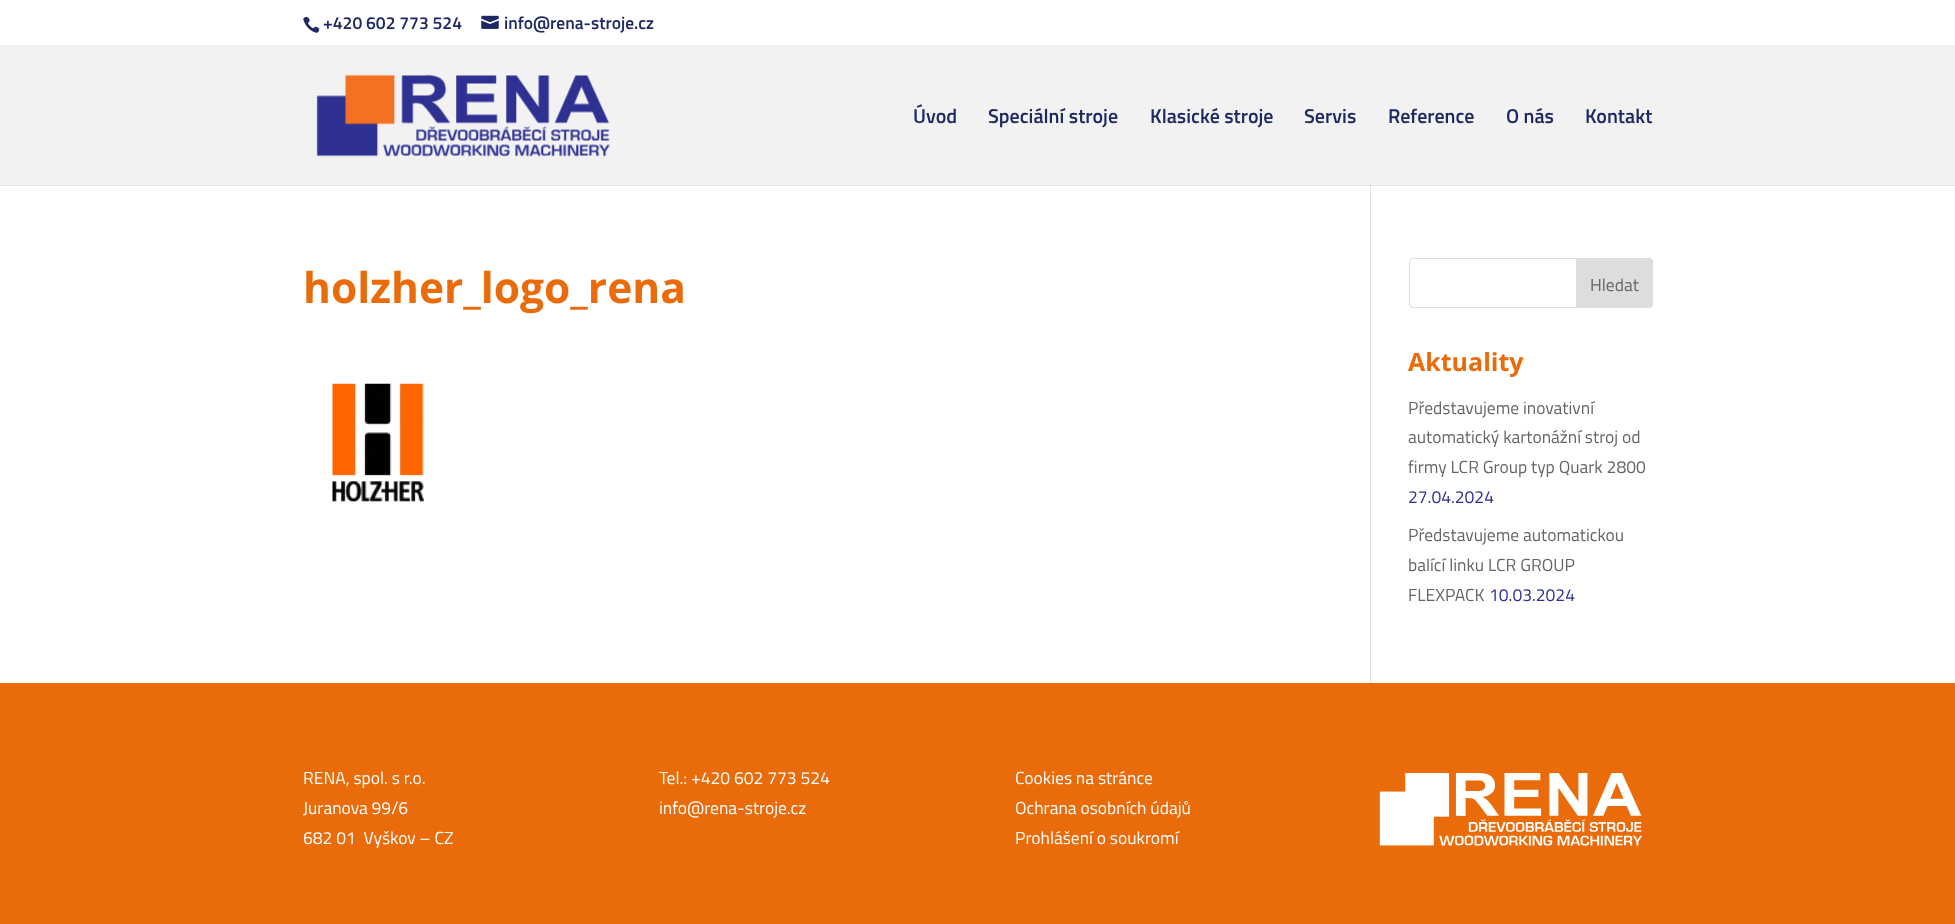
<!DOCTYPE html>
<meta charset="utf-8">
<style>body { margin: 0 } canvas { display: block }</style>
<canvas id="canvas" width="1955" height="924"></canvas>
<img id="img1" src="img_01.png" hidden>
<img id="img2" src="img_02.png" hidden>
<img id="img3" src="img_03.png" hidden>
<img id="img4" src="img_04.png" hidden>
<img id="img5" src="img_05.png" hidden>
<script>
window.onload = function () {
	const canvas = document.getElementById("canvas");
	const ctx = canvas.getContext("2d");
	ctx.miterLimit = 4;
	ctx.fontKerning = "normal";
	function txt(s, x, y) {
		ctx.fillText(s, x, y);
	}
	function fill(x, y, w, h) {
		ctx.fillRect(x, y, w, h);
	}
	function img(id, x, y, w, h) {
		ctx.drawImage(document.getElementById(id), x, y, w, h);
	}

	ctx.fillStyle = "#FFFFFF";
	fill(0, 0, 1955, 924);
	ctx.fillStyle = "#E6E6E6";
	fill(0, 185, 1955, 1);
	img("img1", 303, 16, 17, 17);
	img("img2", 481, 15, 18, 14);
	ctx.fillStyle = "#F2F2F2";
	fill(0, 45, 1955, 140);
	img("img3", 316, 74, 294, 83);
	ctx.fillStyle = "#E2E2E2";
	fill(1370, 185, 1, 498);
	ctx.fillStyle = "#CBCBCB";
	fill(1370, 185, 1, 1);
	img("img4", 332, 383, 92, 119);
	ctx.beginPath();
	ctx.roundRect(1409.5, 258.5, 243, 49, 3.5);
	ctx.strokeStyle = "#DDDDDD";
	ctx.stroke();
	ctx.fillStyle = "#DDDDDD";
	ctx.beginPath();
	ctx.roundRect(1576.5, 258.5, 76, 49, [0, 3.5, 3.5, 0]);
	ctx.fill();
	ctx.stroke();
	ctx.fillStyle = "#EA6B09";
	fill(0, 683, 1955, 241);
	img("img5", 1379, 773, 263, 73);
	ctx.font = "600 17.5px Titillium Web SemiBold";
	ctx.fillStyle = "#1E2962";
	txt("+420 602 773 524", 323, 29);
	txt("info@rena-stroje.cz", 504, 29);
	ctx.font = "600 20px Titillium Web SemiBold";
	txt("Úvod", 913, 123);
	txt("Speciální stroje", 988, 123);
	txt("Klasické stroje", 1150, 123);
	txt("Servis", 1304, 123);
	txt("Reference", 1388, 123);
	txt("O nás", 1506, 123);
	txt("Kontakt", 1585, 123);
	ctx.font = "bold 42.5px Open Sans";
	ctx.fillStyle = "#EA6B09";
	txt("holzher_logo_rena", 303, 303);
	ctx.font = "17.5px Titillium Web";
	ctx.fillStyle = "#666666";
	txt("Hledat", 1590, 291);
	ctx.font = "bold 25px Open Sans";
	ctx.fillStyle = "#EA6B09";
	txt("Aktuality", 1408, 371);
	ctx.font = "17.5px Titillium Web";
	ctx.fillStyle = "#666666";
	txt("Představujeme inovativní", 1408, 414);
	txt("automatický kartonážní stroj od", 1408, 443);
	txt("firmy LCR Group typ Quark 2800", 1408, 473);
	ctx.fillStyle = "#2E3192";
	txt("27.04.2024", 1408, 503);
	ctx.fillStyle = "#666666";
	txt("Představujeme automatickou", 1408, 541);
	txt("balící linku LCR GROUP", 1408, 571);
	txt("FLEXPACK", 1408, 601);
	ctx.fillStyle = "#2E3192";
	txt("10.03.2024", 1489, 601);
	ctx.fillStyle = "#FFFFFF";
	txt("RENA, spol. s r.o.", 303, 784);
	txt("Juranova 99/6", 303, 814);
	txt("682 01  Vyškov – CZ", 303, 844);
	txt("Tel.: +420 602 773 524", 659, 784);
	txt("info@rena-stroje.cz", 659, 814);
	txt("Cookies na stránce", 1015, 784);
	txt("Ochrana osobních údajů", 1015, 814);
	txt("Prohlášení o soukromí", 1015, 844);
};
</script>
